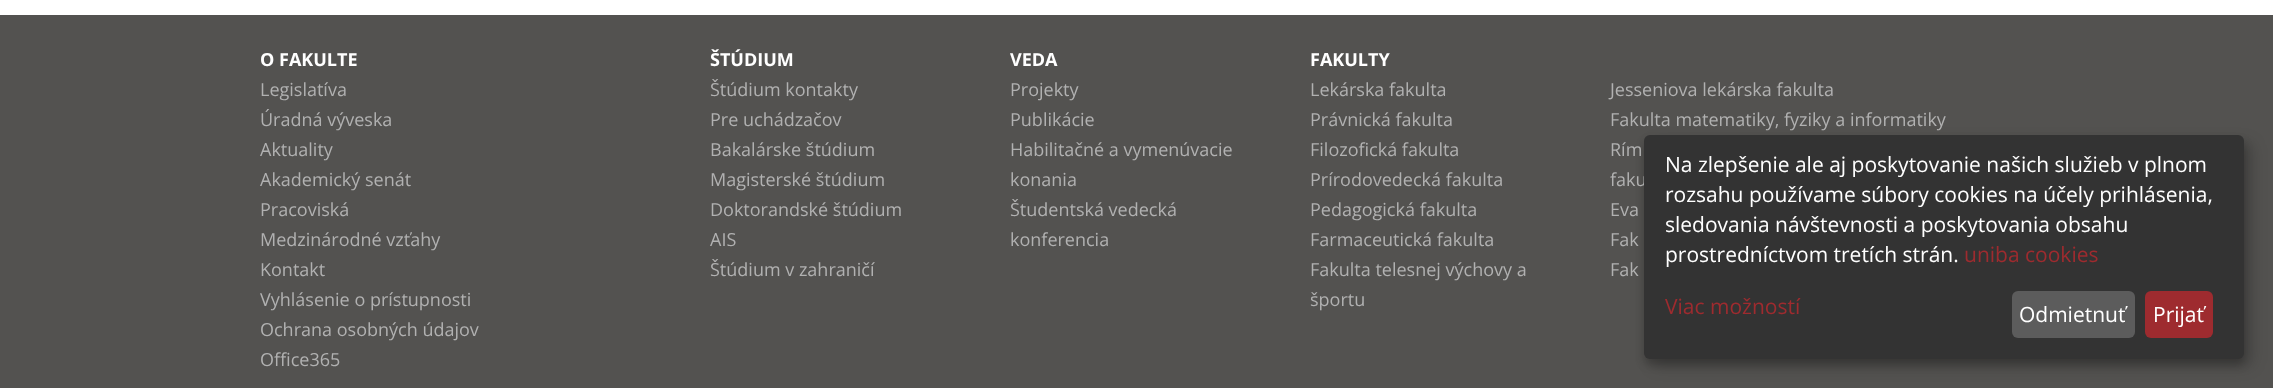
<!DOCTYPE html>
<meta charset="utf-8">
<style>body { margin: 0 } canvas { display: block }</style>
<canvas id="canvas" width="2273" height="388"></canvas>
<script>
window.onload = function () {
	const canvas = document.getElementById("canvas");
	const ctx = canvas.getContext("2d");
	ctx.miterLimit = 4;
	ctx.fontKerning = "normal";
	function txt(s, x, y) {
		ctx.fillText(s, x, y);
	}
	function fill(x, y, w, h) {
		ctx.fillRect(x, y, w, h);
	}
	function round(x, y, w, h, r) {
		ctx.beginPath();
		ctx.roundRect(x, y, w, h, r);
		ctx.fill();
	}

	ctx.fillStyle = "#FFFFFF";
	fill(0, 0, 2273, 388);
	ctx.fillStyle = "#535250";
	fill(0, 15, 2273, 373);
	ctx.fillStyle = "rgba(0, 0, 0, 0.19)";
	ctx.filter = "blur(7.5px)";
	ctx.beginPath();
	ctx.roundRect(1652, 143, 600, 223, 6);
	ctx.fill();
	ctx.filter = "none";
	ctx.fillStyle = "rgba(0, 0, 0, 0.2)";
	ctx.filter = "blur(4.5px)";
	ctx.beginPath();
	ctx.roundRect(1644, 141, 600, 224, 6);
	ctx.fill();
	ctx.filter = "none";
	ctx.font = "bold 18px Open Sans";
	ctx.fillStyle = "#FFFFFF";
	txt("O FAKULTE", 260, 66);
	ctx.font = "18px Open Sans";
	ctx.fillStyle = "#B1B1B1";
	txt("Legislatíva", 260, 96);
	txt("Úradná výveska", 260, 126);
	txt("Aktuality", 260, 156);
	txt("Akademický senát", 260, 186);
	txt("Pracoviská", 260, 216);
	txt("Medzinárodné vzťahy", 260, 246);
	txt("Kontakt", 260, 276);
	txt("Vyhlásenie o prístupnosti", 260, 306);
	txt("Ochrana osobných údajov", 260, 336);
	txt("Office365", 260, 366);
	ctx.font = "bold 18px Open Sans";
	ctx.fillStyle = "#FFFFFF";
	txt("ŠTÚDIUM", 710, 66);
	ctx.font = "18px Open Sans";
	ctx.fillStyle = "#B1B1B1";
	txt("Štúdium kontakty", 710, 96);
	txt("Pre uchádzačov", 710, 126);
	txt("Bakalárske štúdium", 710, 156);
	txt("Magisterské štúdium", 710, 186);
	txt("Doktorandské štúdium", 710, 216);
	txt("AIS", 710, 246);
	txt("Štúdium v zahraničí", 710, 276);
	ctx.font = "bold 18px Open Sans";
	ctx.fillStyle = "#FFFFFF";
	txt("VEDA", 1010, 66);
	ctx.font = "18px Open Sans";
	ctx.fillStyle = "#B1B1B1";
	txt("Projekty", 1010, 96);
	txt("Publikácie", 1010, 126);
	txt("Habilitačné a vymenúvacie", 1010, 156);
	txt("konania", 1010, 186);
	txt("Študentská vedecká", 1010, 216);
	txt("konferencia", 1010, 246);
	ctx.font = "bold 18px Open Sans";
	ctx.fillStyle = "#FFFFFF";
	txt("FAKULTY", 1310, 66);
	ctx.font = "18px Open Sans";
	ctx.fillStyle = "#B1B1B1";
	txt("Lekárska fakulta", 1310, 96);
	txt("Právnická fakulta", 1310, 126);
	txt("Filozofická fakulta", 1310, 156);
	txt("Prírodovedecká fakulta", 1310, 186);
	txt("Pedagogická fakulta", 1310, 216);
	txt("Farmaceutická fakulta", 1310, 246);
	txt("Fakulta telesnej výchovy a", 1310, 276);
	txt("športu", 1310, 306);
	txt("Jesseniova lekárska fakulta", 1610, 96);
	txt("Fakulta matematiky, fyziky a informatiky", 1610, 126);
	txt("Rím", 1610, 156);
	txt("faku", 1610, 186);
	txt("Eva", 1610, 216);
	txt("Fak", 1610, 246);
	txt("Fak", 1610, 276);
	ctx.fillStyle = "#333333";
	round(1644, 135, 600, 224, 6);
	ctx.font = "21px Open Sans";
	ctx.fillStyle = "#FFFFFF";
	txt("Na zlepšenie ale aj poskytovanie našich služieb v plnom", 1665, 172);
	txt("rozsahu používame súbory cookies na účely prihlásenia,", 1665, 202);
	txt("sledovania návštevnosti a poskytovania obsahu", 1665, 232);
	txt("prostredníctvom tretích strán.", 1665, 262);
	ctx.fillStyle = "#9E2B2F";
	txt("uniba cookies", 1964, 262);
	txt("Viac možností", 1665, 314);
	ctx.fillStyle = "#5C5C5C";
	round(2012, 291, 123, 47, 6);
	ctx.fillStyle = "#FFFFFF";
	txt("Odmietnuť", 2019, 322);
	ctx.fillStyle = "#9E2B2F";
	round(2145, 291, 68, 47, 6);
	ctx.fillStyle = "#FFFFFF";
	txt("Prijať", 2153, 322);
};
</script>
